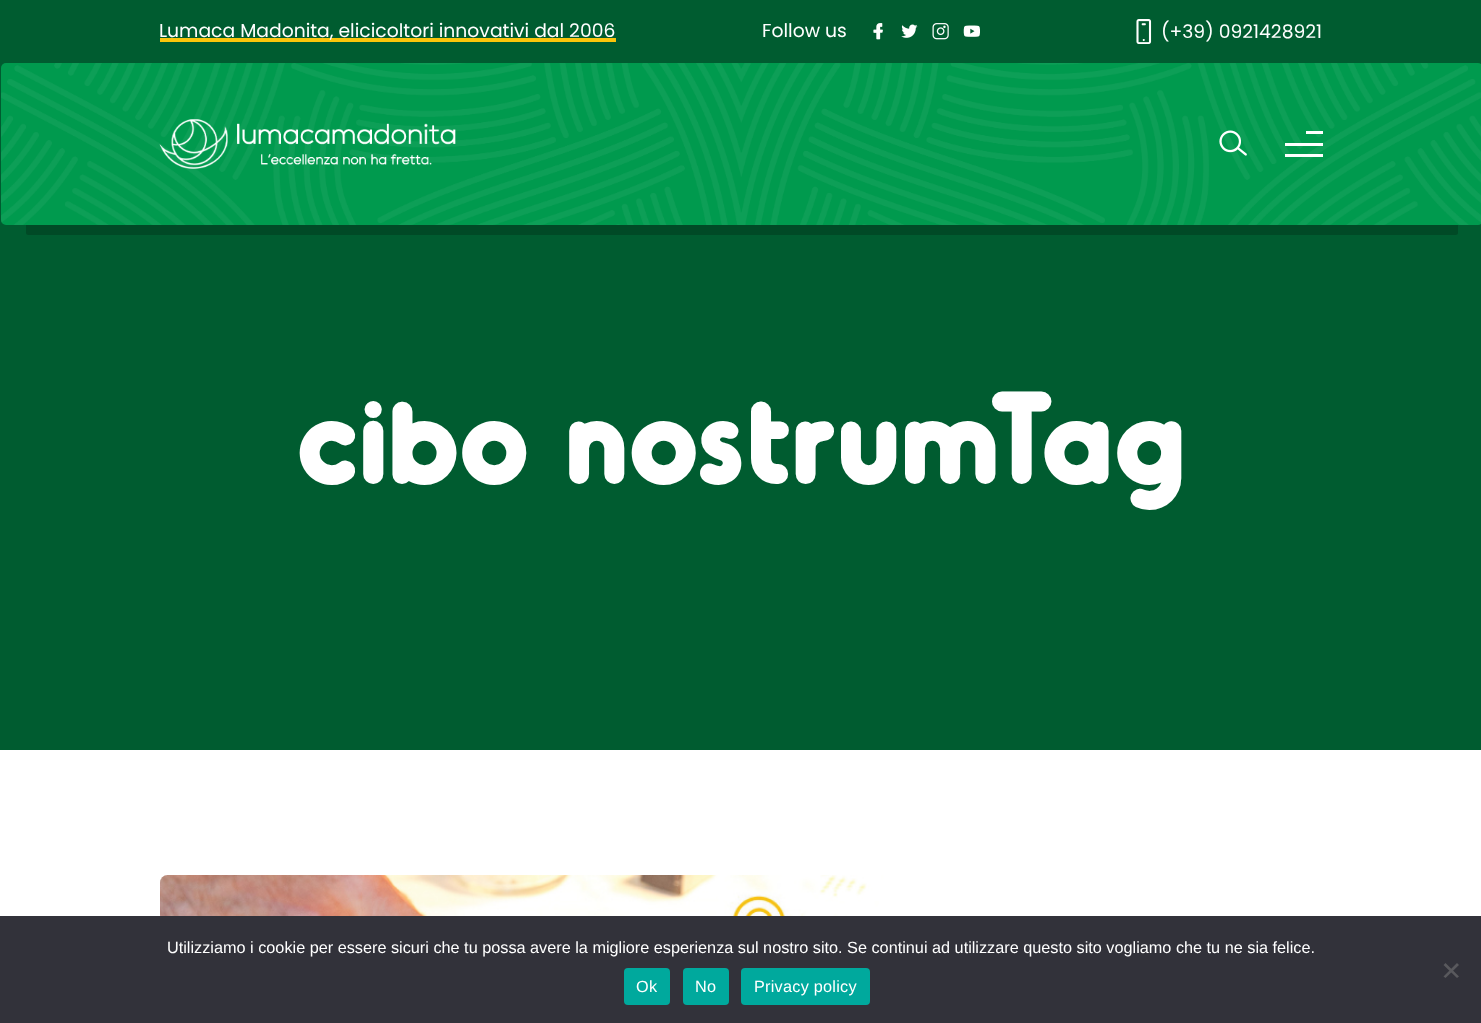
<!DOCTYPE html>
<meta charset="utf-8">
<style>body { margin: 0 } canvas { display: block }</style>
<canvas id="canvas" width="1481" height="1023"></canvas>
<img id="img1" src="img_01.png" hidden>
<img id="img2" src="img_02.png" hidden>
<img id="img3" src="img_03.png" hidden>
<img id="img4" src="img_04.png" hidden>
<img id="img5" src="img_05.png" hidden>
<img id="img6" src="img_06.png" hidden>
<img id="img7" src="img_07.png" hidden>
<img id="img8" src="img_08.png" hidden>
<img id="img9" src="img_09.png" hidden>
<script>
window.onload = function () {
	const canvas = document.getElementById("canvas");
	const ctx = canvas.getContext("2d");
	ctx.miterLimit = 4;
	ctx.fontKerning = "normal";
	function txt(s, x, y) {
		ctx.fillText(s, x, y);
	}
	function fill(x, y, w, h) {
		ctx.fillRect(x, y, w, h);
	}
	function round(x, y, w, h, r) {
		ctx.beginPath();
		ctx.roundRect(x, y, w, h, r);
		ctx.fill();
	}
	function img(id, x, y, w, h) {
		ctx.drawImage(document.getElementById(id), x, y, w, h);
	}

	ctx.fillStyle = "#FFFFFF";
	fill(0, 0, 1481, 1023);
	ctx.fillStyle = "#005C30";
	fill(0, 0, 1481, 750);
	ctx.fillStyle = "#FBC50B";
	fill(160, 38, 456, 4);
	img("img1", 873, 23, 10, 17);
	img("img2", 901, 24, 17, 14);
	img("img3", 932, 23, 17, 17);
	img("img4", 963, 25, 17, 12);
	img("img5", 1136, 19, 16, 25);
	ctx.fillStyle = "#009A4E";
	round(1, 63, 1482, 162, 5);
	img("img6", 1, 63, 1480, 162);
	img("img7", 159, 119, 297, 50);
	img("img8", 1219, 130, 28, 26);
	ctx.fillStyle = "#FFFFFF";
	fill(1306, 131, 17, 3);
	fill(1285, 143, 38, 3);
	fill(1285, 154, 38, 3);
	ctx.fillStyle = "#004A26";
	ctx.beginPath();
	ctx.roundRect(26, 225, 1432, 10, [0, 0, 2.5, 2.5]);
	ctx.fill();
	img("img9", 160, 875, 736, 41);
	ctx.fillStyle = "#32323A";
	fill(0, 916, 1481, 107);
	ctx.fillStyle = "#59595D";
	ctx.beginPath();
	ctx.moveTo(1457, 963);
	ctx.lineTo(1459, 965);
	ctx.lineTo(1445.5, 978);
	ctx.lineTo(1443.5, 976.5);
	ctx.closePath();
	ctx.fill();
	ctx.beginPath();
	ctx.moveTo(1443.5, 965);
	ctx.lineTo(1445.5, 963);
	ctx.lineTo(1459, 976.5);
	ctx.lineTo(1457, 978);
	ctx.closePath();
	ctx.fill();
	ctx.fillStyle = "#00A99D";
	round(624, 968, 46, 37, 4);
	round(683, 968, 46, 37, 4);
	round(741, 968, 129, 37, 4);
	ctx.font = "18.75px Poppins";
	ctx.fillStyle = "#FFFFFF";
	txt("Lumaca Madonita, elicicoltori innovativi dal 2006", 159, 37);
	txt("Follow us", 762, 37);
	txt("(+39) 0921428921", 1161, 38);
	ctx.font = "bold 125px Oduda";
	txt("cibo nostrumTag", 296, 484);
	ctx.font = "16.25px Liberation Sans";
	txt("Utilizziamo i cookie per essere sicuri che tu possa avere la migliore esperienza sul nostro sito. Se continui ad utilizzare questo sito vogliamo che tu ne sia felice.", 167, 953);
	ctx.letterSpacing = "0.25px";
	txt("Ok", 636, 992);
	txt("No", 695, 992);
	txt("Privacy policy", 754, 992);
};
</script>
